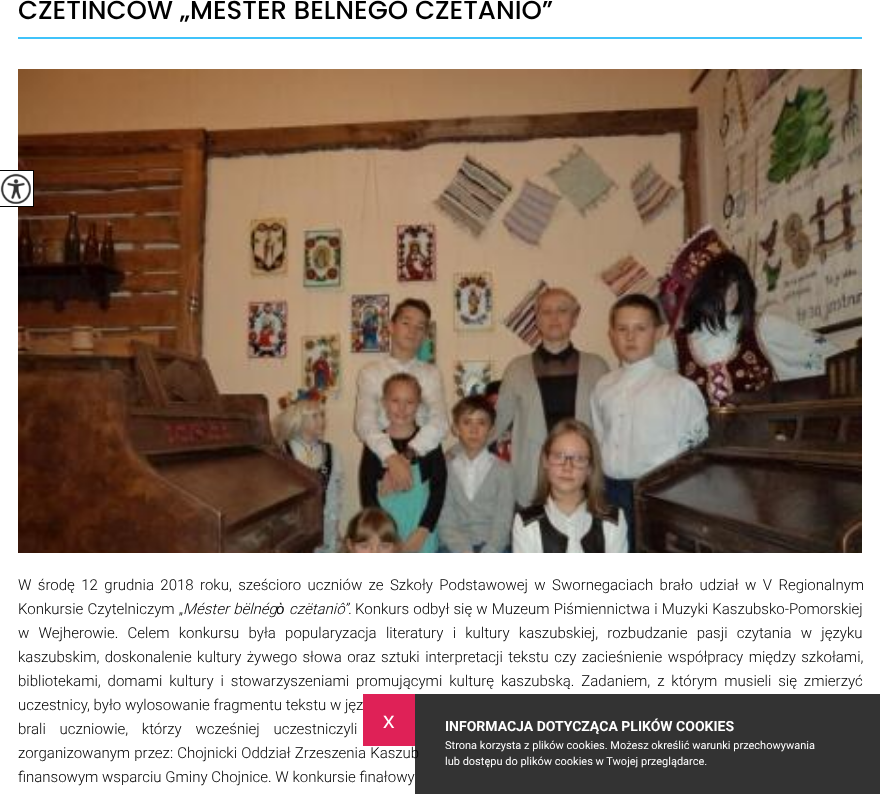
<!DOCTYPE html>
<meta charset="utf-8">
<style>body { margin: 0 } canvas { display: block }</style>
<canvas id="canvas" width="880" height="794"></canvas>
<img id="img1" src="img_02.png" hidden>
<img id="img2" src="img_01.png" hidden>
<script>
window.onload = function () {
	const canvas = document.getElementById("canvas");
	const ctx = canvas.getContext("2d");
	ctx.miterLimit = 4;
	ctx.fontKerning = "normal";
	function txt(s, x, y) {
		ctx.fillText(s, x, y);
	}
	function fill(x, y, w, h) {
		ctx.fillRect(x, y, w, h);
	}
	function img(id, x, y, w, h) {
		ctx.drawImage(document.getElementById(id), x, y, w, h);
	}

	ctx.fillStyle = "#FFFFFF";
	fill(0, 0, 880, 794);
	img("img1", 18, 69, 844, 484);
	fill(18, 171, 15, 35);
	ctx.strokeStyle = "#000000";
	ctx.strokeRect(-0.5, 170.5, 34, 36);
	img("img2", 0, 173, 31, 31);
	ctx.fillStyle = "#40C3FA";
	fill(18, 37, 844, 2);
	ctx.font = "500 26px Poppins";
	ctx.fillStyle = "#000000";
	txt("CZËTIŃCÓW „MÉSTER BËLNÉGÒ CZËTANIÔ”", 18, 19);
	ctx.wordSpacing = "2.75px";
	ctx.font = "300 15px Roboto";
	txt("W środę 12 grudnia 2018 roku, sześcioro uczniów ze Szkoły Podstawowej w Swornegaciach brało udział w V Regionalnym", 18, 590);
	ctx.wordSpacing = "0.5px";
	txt("Konkursie Czytelniczym „", 18, 614);
	ctx.font = "italic 300 15px Roboto";
	txt("Méster bëlnég", 183, 614);
	ctx.wordSpacing = "0px";
	ctx.font = "italic 15px Liberation Sans";
	txt("ὸ", 276, 614);
	ctx.font = "italic 300 15px Roboto";
	txt("czëtaniô”.", 289, 614);
	ctx.wordSpacing = "0.5px";
	ctx.font = "300 15px Roboto";
	txt("Konkurs odbył się w Muzeum Piśmiennictwa i Muzyki Kaszubsko-Pomorskiej", 355, 614);
	ctx.wordSpacing = "5.6px";
	txt("w Wejherowie. Celem konkursu była popularyzacja literatury i kultury kaszubskiej, rozbudzanie pasji czytania w języku", 18, 638);
	ctx.wordSpacing = "1.75px";
	txt("kaszubskim, doskonalenie kultury żywego słowa oraz sztuki interpretacji tekstu czy zacieśnienie współpracy między szkołami,", 18, 662);
	ctx.wordSpacing = "3.25px";
	txt("bibliotekami, domami kultury i stowarzyszeniami promującymi kulturę kaszubską. Zadaniem, z którym musieli się zmierzyć", 18, 686);
	ctx.wordSpacing = "0px";
	txt("uczestnicy, było wylosowanie fragmentu tekstu w jęz", 18, 710);
	ctx.wordSpacing = "10px";
	txt("brali uczniowie, którzy wcześniej uczestniczyli", 18, 734);
	ctx.wordSpacing = "0.5px";
	txt("zorganizowanym przez: Chojnicki Oddział Zrzeszenia Kaszub", 18, 758);
	ctx.wordSpacing = "0px";
	txt("finansowym wsparciu Gminy Chojnice. W konkursie finałowy", 18, 782);
	ctx.fillStyle = "rgba(0, 0, 0, 0.8)";
	fill(415, 694, 465, 100);
	ctx.fillStyle = "#DF2157";
	fill(363, 694, 52, 52);
	ctx.font = "23px Liberation Sans";
	ctx.fillStyle = "#FFFFFF";
	txt("x", 383, 728);
	ctx.font = "bold 14px Roboto";
	txt("INFORMACJA DOTYCZĄCA PLIKÓW COOKIES", 445, 731);
	ctx.font = "11px Roboto";
	txt("Strona korzysta z plików cookies. Możesz określić warunki przechowywania", 445, 749);
	txt("lub dostępu do plików cookies w Twojej przeglądarce.", 445, 765);
};
</script>
